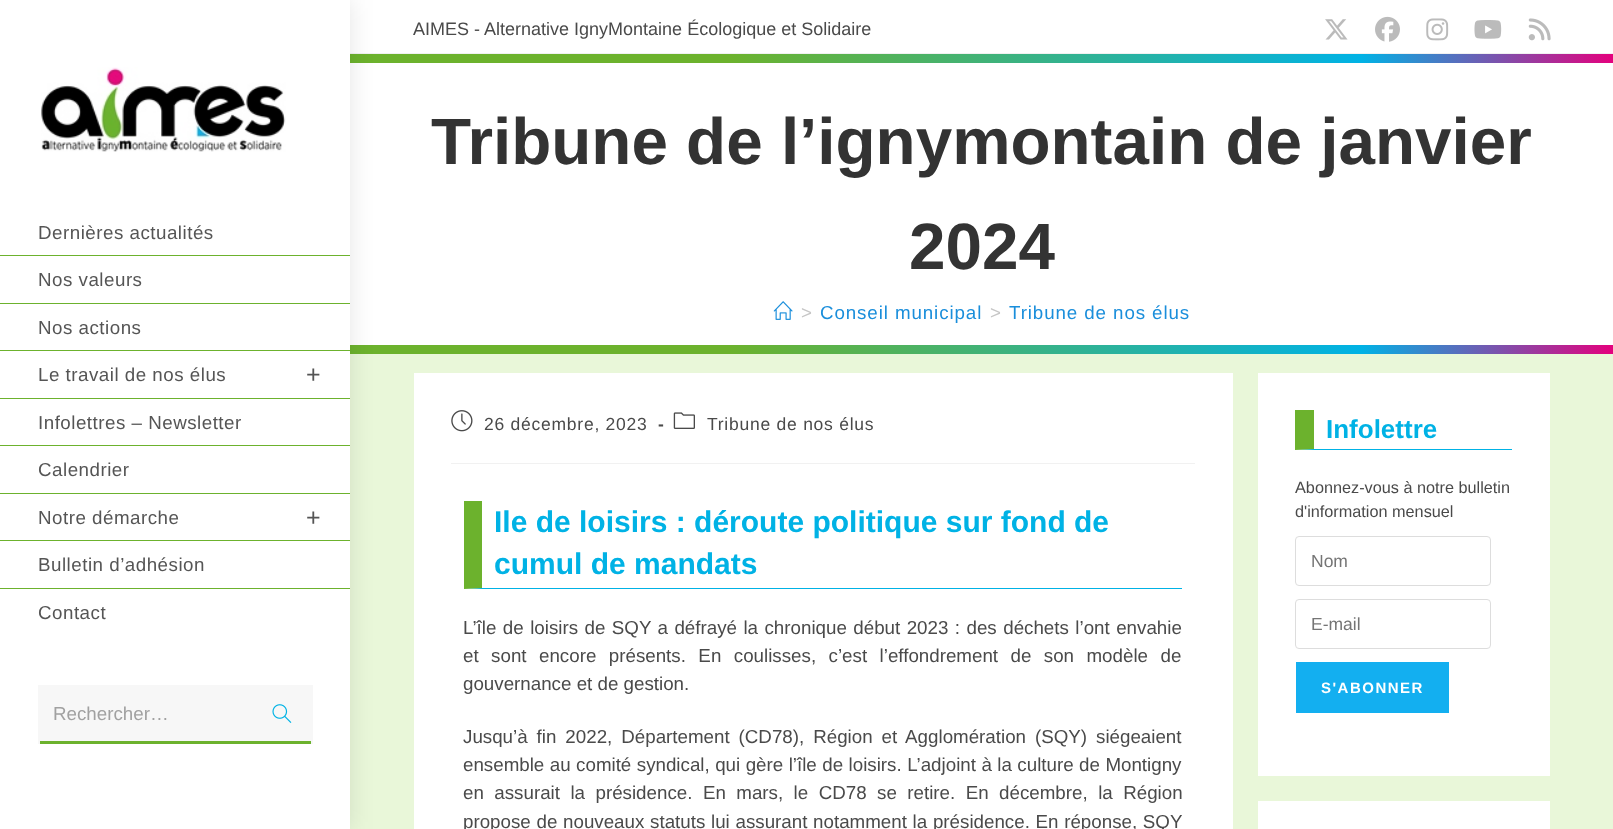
<!DOCTYPE html>
<meta charset="utf-8">
<style>body { margin: 0 } canvas { display: block }</style>
<canvas id="canvas" width="1613" height="829"></canvas>
<img id="img1" src="img_01.png" hidden>
<img id="img2" src="img_02.png" hidden>
<img id="img3" src="img_03.png" hidden>
<img id="img4" src="img_04.png" hidden>
<img id="img5" src="img_05.png" hidden>
<img id="img6" src="img_06.png" hidden>
<img id="img7" src="img_07.png" hidden>
<img id="img8" src="img_08.png" hidden>
<img id="img9" src="img_09.png" hidden>
<img id="img10" src="img_10.png" hidden>
<script>
window.onload = function () {
	const canvas = document.getElementById("canvas");
	const ctx = canvas.getContext("2d");
	ctx.miterLimit = 4;
	ctx.fontKerning = "normal";
	function txt(s, x, y) {
		ctx.fillText(s, x, y);
	}
	function fill(x, y, w, h) {
		ctx.fillRect(x, y, w, h);
	}
	function img(id, x, y, w, h) {
		ctx.drawImage(document.getElementById(id), x, y, w, h);
	}
	let gradient;

	ctx.fillStyle = "#E9F7D9";
	fill(0, 0, 1613, 829);
	ctx.fillStyle = "#FFFFFF";
	fill(350, 0, 1263, 53);
	ctx.fillStyle = "#F1F1F1";
	fill(350, 53, 1263, 1);
	img("img1", 1325, 19, 23, 21);
	img("img2", 1375, 16, 25, 26);
	img("img3", 1426, 18, 23, 23);
	img("img4", 1474, 20, 28, 19);
	img("img5", 1528, 18, 23, 23);
	ctx.fillStyle = "#FFFFFF";
	fill(350, 63, 1263, 282);
	gradient = ctx.createLinearGradient(350, 58, 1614, 58);
	gradient.addColorStop(0.3, "#6CB22D");
	gradient.addColorStop(0.8, "#00B2E5");
	gradient.addColorStop(1, "#E5007D");
	ctx.fillStyle = gradient;
	fill(350, 54, 1263, 9);
	gradient = ctx.createLinearGradient(350, 349, 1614, 349);
	gradient.addColorStop(0.3, "#6CB22D");
	gradient.addColorStop(0.8, "#00B2E5");
	gradient.addColorStop(1, "#E5007D");
	ctx.fillStyle = gradient;
	fill(350, 345, 1263, 9);
	ctx.fillStyle = "rgba(0, 0, 0, 0.1)";
	ctx.filter = "blur(12.5px)";
	ctx.beginPath();
	ctx.rect(0, 0, 350, 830);
	ctx.fill();
	ctx.filter = "none";
	ctx.fillStyle = "#FFFFFF";
	fill(0, 0, 350, 829);
	img("img6", 41, 67, 245, 85);
	ctx.fillStyle = "#6CB22D";
	fill(0, 255, 350, 1);
	fill(0, 303, 350, 1);
	fill(0, 350, 350, 1);
	fill(0, 398, 350, 1);
	fill(0, 445, 350, 1);
	fill(0, 493, 350, 1);
	fill(0, 540, 350, 1);
	fill(0, 588, 350, 1);
	ctx.fillStyle = "#F7F7F7";
	fill(38, 685, 275, 59);
	img("img7", 272, 704, 20, 19);
	ctx.fillStyle = "#6CB22D";
	fill(40, 741, 271, 3);
	img("img8", 773, 301, 20, 19);
	ctx.fillStyle = "#FFFFFF";
	fill(414, 373, 819, 456);
	ctx.fillStyle = "#F1F1F1";
	fill(451, 463, 744, 1);
	img("img9", 451, 410, 22, 22);
	img("img10", 673, 412, 22, 17);
	ctx.fillStyle = "#00B2E5";
	ctx.beginPath();
	ctx.moveTo(1182, 589);
	ctx.lineTo(464, 589);
	ctx.lineTo(482, 588);
	ctx.lineTo(1182, 588);
	ctx.closePath();
	ctx.fill();
	ctx.fillStyle = "#6CB22D";
	ctx.beginPath();
	ctx.moveTo(464, 589);
	ctx.lineTo(464, 501);
	ctx.lineTo(482, 501);
	ctx.lineTo(482, 588);
	ctx.closePath();
	ctx.fill();
	ctx.fillStyle = "#FFFFFF";
	fill(1258, 373, 292, 403);
	ctx.fillStyle = "#00B2E5";
	ctx.beginPath();
	ctx.moveTo(1512, 450);
	ctx.lineTo(1295, 450);
	ctx.lineTo(1314, 449);
	ctx.lineTo(1512, 449);
	ctx.closePath();
	ctx.fill();
	ctx.fillStyle = "#6CB22D";
	ctx.beginPath();
	ctx.moveTo(1295, 450);
	ctx.lineTo(1295, 410);
	ctx.lineTo(1314, 410);
	ctx.lineTo(1314, 449);
	ctx.closePath();
	ctx.fill();
	ctx.beginPath();
	ctx.roundRect(1295.5, 536.5, 195, 49, 3.5);
	ctx.strokeStyle = "#DDDDDD";
	ctx.stroke();
	ctx.beginPath();
	ctx.roundRect(1295.5, 599.5, 195, 49, 3.5);
	ctx.stroke();
	ctx.fillStyle = "#13AFF0";
	fill(1296, 662, 153, 51);
	ctx.fillStyle = "#FFFFFF";
	fill(1258, 801, 292, 28);
	ctx.font = "18px Liberation Sans";
	ctx.fillStyle = "#4A4A4A";
	txt("AIMES - Alternative IgnyMontaine Écologique et Solidaire", 413, 35);
	ctx.letterSpacing = "0.5px";
	ctx.font = "18.75px Liberation Sans";
	ctx.fillStyle = "#555555";
	txt("Dernières actualités", 38, 239);
	txt("Nos valeurs", 38, 286);
	txt("Nos actions", 38, 334);
	txt("Le travail de nos élus", 38, 381);
	ctx.font = "25px Liberation Sans";
	txt("+", 306, 383);
	ctx.font = "18.75px Liberation Sans";
	txt("Infolettres – Newsletter", 38, 429);
	txt("Calendrier", 38, 476);
	txt("Notre démarche", 38, 524);
	ctx.font = "25px Liberation Sans";
	txt("+", 306, 526);
	ctx.font = "18.75px Liberation Sans";
	txt("Bulletin d’adhésion", 38, 571);
	txt("Contact", 38, 619);
	ctx.letterSpacing = "0px";
	ctx.fillStyle = "#A1A1A1";
	txt("Rechercher…", 53, 720);
	ctx.font = "bold 65.6px Liberation Sans";
	ctx.fillStyle = "#333333";
	txt("Tribune de l’ignymontain de janvier", 431, 164);
	txt("2024", 909, 269);
	ctx.letterSpacing = "0.9px";
	ctx.font = "18.75px Liberation Sans";
	ctx.fillStyle = "#C6C6C6";
	txt(">", 801, 319);
	ctx.fillStyle = "#1A8EDB";
	txt("Conseil municipal", 820, 319);
	ctx.fillStyle = "#C6C6C6";
	txt(">", 990, 319);
	ctx.fillStyle = "#1A8EDB";
	txt("Tribune de nos élus", 1009, 319);
	ctx.letterSpacing = "0.75px";
	ctx.font = "17.5px Liberation Sans";
	ctx.fillStyle = "#4A4A4A";
	txt("26 décembre, 2023", 484, 430);
	ctx.font = "bold 17.5px Liberation Sans";
	txt("-", 658, 430);
	ctx.font = "17.5px Liberation Sans";
	txt("Tribune de nos élus", 707, 430);
	ctx.letterSpacing = "0px";
	ctx.font = "bold 30px Liberation Sans";
	ctx.fillStyle = "#00B2E5";
	txt("Ile de loisirs : déroute politique sur fond de", 494, 532);
	txt("cumul de mandats", 494, 574);
	ctx.wordSpacing = "1.25px";
	ctx.font = "18.75px Liberation Sans";
	ctx.fillStyle = "#4A4A4A";
	txt("L’île de loisirs de SQY a défrayé la chronique début 2023 : des déchets l’ont envahie", 463, 634);
	ctx.wordSpacing = "7.25px";
	txt("et sont encore présents. En coulisses, c’est l’effondrement de son modèle de", 463, 662);
	ctx.wordSpacing = "0px";
	txt("gouvernance et de gestion.", 463, 690);
	ctx.wordSpacing = "3.75px";
	txt("Jusqu’à fin 2022, Département (CD78), Région et Agglomération (SQY) siégeaient", 463, 743);
	ctx.wordSpacing = "0.25px";
	txt("ensemble au comité syndical, qui gère l’île de loisirs. L’adjoint à la culture de Montigny", 463, 771);
	ctx.wordSpacing = "5.25px";
	txt("en assurait la présidence. En mars, le CD78 se retire. En décembre, la Région", 463, 799);
	ctx.wordSpacing = "0.5px";
	txt("propose de nouveaux statuts lui assurant notamment la présidence. En réponse, SQY", 463, 828);
	ctx.wordSpacing = "0px";
	ctx.font = "bold 26px Liberation Sans";
	ctx.fillStyle = "#00B2E5";
	txt("Infolettre", 1326, 438);
	ctx.font = "16.25px Liberation Sans";
	ctx.fillStyle = "#4A4A4A";
	txt("Abonnez-vous à notre bulletin", 1295, 493);
	txt("d'information mensuel", 1295, 517);
	ctx.font = "17.5px Liberation Sans";
	ctx.fillStyle = "#757575";
	txt("Nom", 1311, 567);
	txt("E-mail", 1311, 630);
	ctx.letterSpacing = "1.5px";
	ctx.font = "bold 15px Liberation Sans";
	ctx.fillStyle = "#FFFFFF";
	txt("S'ABONNER", 1321, 693);
};
</script>
